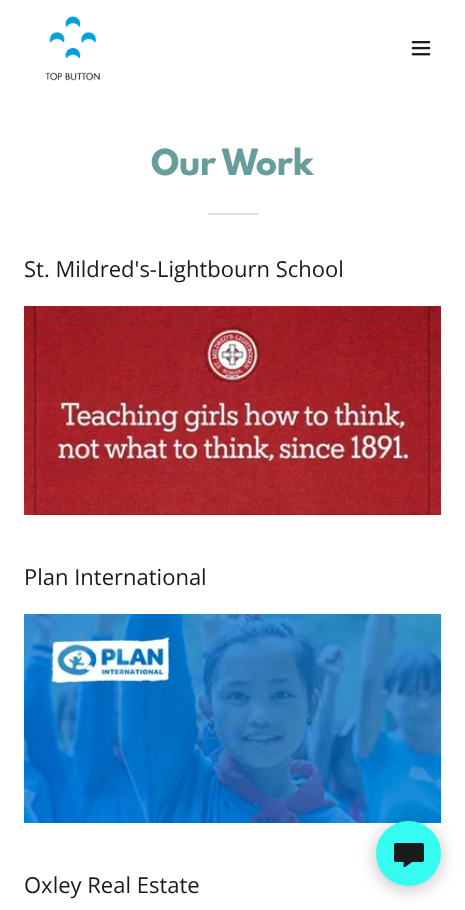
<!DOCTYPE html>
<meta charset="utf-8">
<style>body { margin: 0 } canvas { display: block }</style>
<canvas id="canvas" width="465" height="910"></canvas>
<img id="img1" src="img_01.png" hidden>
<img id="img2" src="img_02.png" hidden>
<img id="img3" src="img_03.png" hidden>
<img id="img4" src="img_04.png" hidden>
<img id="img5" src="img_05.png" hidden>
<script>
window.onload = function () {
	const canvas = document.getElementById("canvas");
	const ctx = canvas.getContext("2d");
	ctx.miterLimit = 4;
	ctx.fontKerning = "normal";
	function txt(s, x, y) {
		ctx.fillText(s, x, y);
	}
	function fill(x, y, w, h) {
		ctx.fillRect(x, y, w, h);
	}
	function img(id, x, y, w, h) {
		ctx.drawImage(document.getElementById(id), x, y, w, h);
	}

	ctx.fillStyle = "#FFFFFF";
	fill(0, 0, 465, 910);
	img("img1", 45, 16, 55, 65);
	img("img2", 411, 41, 20, 15);
	ctx.fillStyle = "#E2E2E2";
	fill(208, 213, 50, 2);
	img("img3", 24, 306, 417, 209);
	img("img4", 24, 614, 417, 209);
	ctx.fillStyle = "rgba(0, 0, 0, 0.25)";
	ctx.filter = "blur(9px)";
	ctx.beginPath();
	ctx.roundRect(376, 824, 65, 65, 32.5);
	ctx.fill();
	ctx.filter = "none";
	ctx.fillStyle = "#36FBF0";
	ctx.beginPath();
	ctx.arc(408.5, 853.5, 32.5, 0, Math.PI * 2);
	ctx.fill();
	img("img5", 394, 843, 30, 25);
	ctx.font = "bold 32px League Spartan";
	ctx.fillStyle = "#679E9A";
	txt("Our Work", 151, 175);
	ctx.font = "22px Open Sans";
	ctx.fillStyle = "#1B1B1B";
	txt("St. Mildred's-Lightbourn School", 24, 277);
	txt("Plan International", 24, 585);
	txt("Oxley Real Estate", 24, 893);
};
</script>
